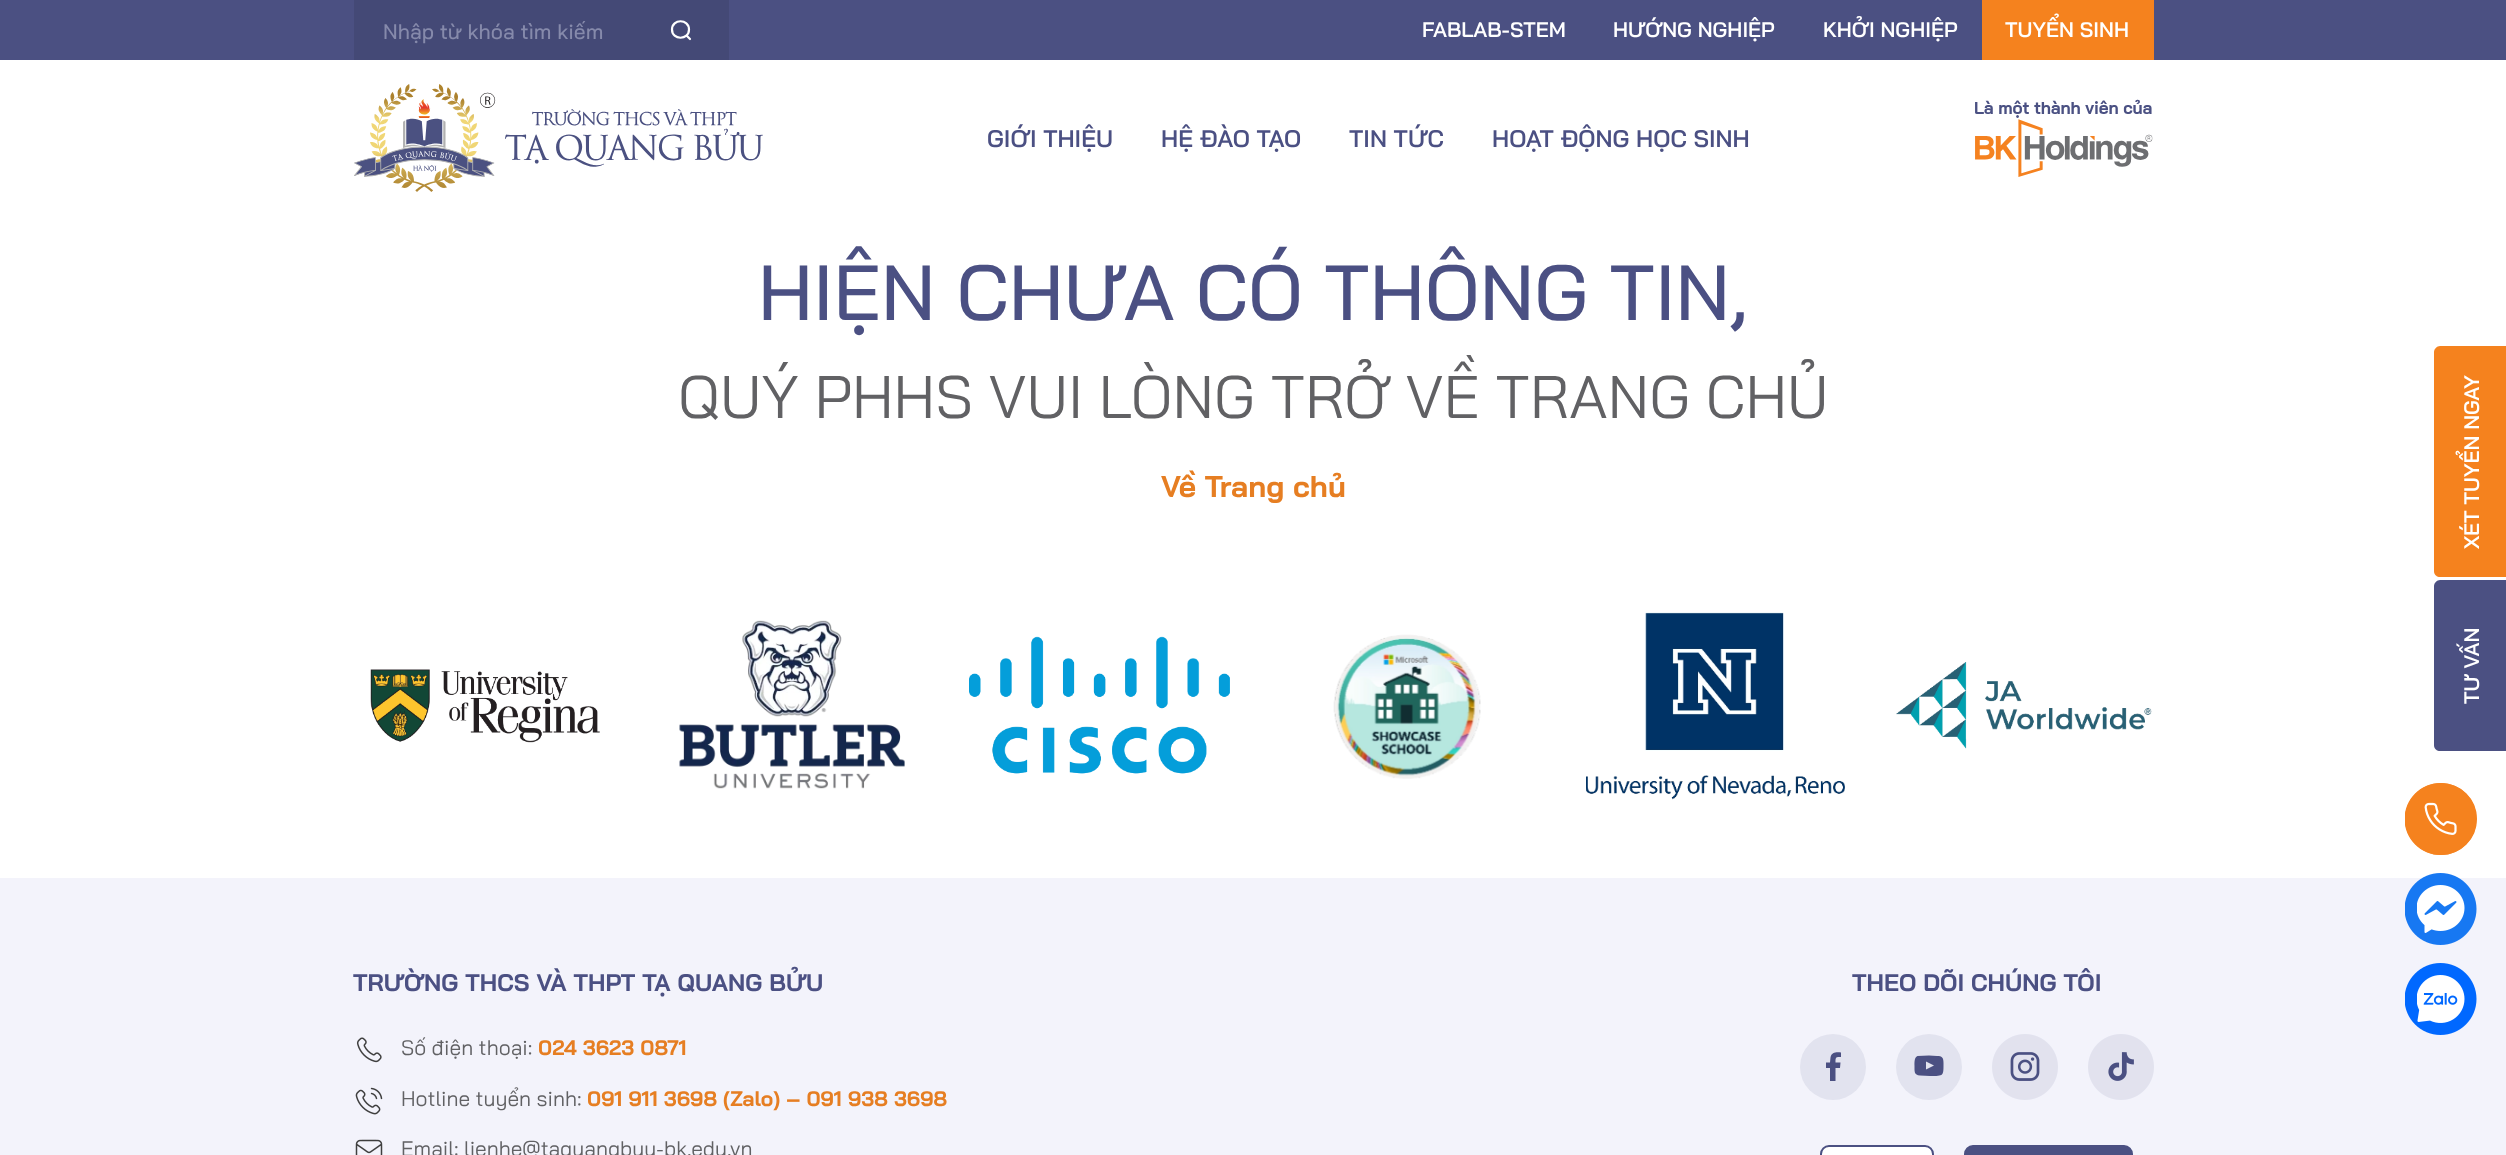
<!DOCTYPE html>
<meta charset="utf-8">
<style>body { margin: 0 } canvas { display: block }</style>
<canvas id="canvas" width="2506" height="1155"></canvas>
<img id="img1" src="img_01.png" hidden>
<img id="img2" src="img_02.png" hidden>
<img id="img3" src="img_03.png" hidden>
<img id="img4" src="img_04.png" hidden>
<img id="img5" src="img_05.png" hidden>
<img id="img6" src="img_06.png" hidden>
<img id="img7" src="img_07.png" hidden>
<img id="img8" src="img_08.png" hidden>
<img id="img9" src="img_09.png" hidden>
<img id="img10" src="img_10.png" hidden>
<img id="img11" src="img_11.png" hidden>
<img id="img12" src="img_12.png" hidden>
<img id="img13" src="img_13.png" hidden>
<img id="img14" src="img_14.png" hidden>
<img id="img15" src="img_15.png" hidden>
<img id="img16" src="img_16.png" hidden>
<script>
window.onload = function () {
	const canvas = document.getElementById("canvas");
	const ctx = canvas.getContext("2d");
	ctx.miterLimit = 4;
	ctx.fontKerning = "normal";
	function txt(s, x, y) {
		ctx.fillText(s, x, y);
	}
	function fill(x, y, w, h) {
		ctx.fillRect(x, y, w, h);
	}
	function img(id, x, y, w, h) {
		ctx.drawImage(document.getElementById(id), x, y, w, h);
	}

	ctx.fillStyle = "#FFFFFF";
	fill(0, 0, 2506, 1155);
	ctx.fillStyle = "#4B5082";
	fill(0, 0, 2506, 60);
	ctx.fillStyle = "#444976";
	fill(354, 0, 375, 60);
	ctx.beginPath();
	ctx.moveTo(690, 39);
	ctx.lineTo(686.5, 35.5);
	ctx.moveTo(689, 29.5);
	ctx.bezierCurveTo(689, 40.5, 672, 40.5, 672, 29.5);
	ctx.bezierCurveTo(672, 18.5, 689, 18.5, 689, 29.5);
	ctx.closePath();
	ctx.strokeStyle = "#FFFFFF";
	ctx.lineWidth = 2.2;
	ctx.lineCap = "round";
	ctx.lineJoin = "round";
	ctx.stroke();
	ctx.fillStyle = "#F5821E";
	fill(1982, 0, 172, 60);
	img("img1", 354, 84, 409, 108);
	img("img2", 1975, 99, 178, 78);
	img("img3", 370, 669, 230, 74);
	img("img4", 679, 620, 226, 169);
	img("img5", 969, 636, 261, 138);
	img("img6", 1333, 634, 148, 145);
	img("img7", 1586, 612, 259, 188);
	img("img8", 1896, 662, 256, 87);
	ctx.fillStyle = "#F3F3FB";
	fill(0, 878, 2506, 277);
	img("img9", 356, 1037, 26, 26);
	img("img10", 355, 1087, 28, 28);
	img("img11", 355, 1139, 28, 16);
	ctx.fillStyle = "#E2E3EF";
	ctx.beginPath();
	ctx.arc(1833, 1067, 33, 0, Math.PI * 2);
	ctx.fill();
	ctx.fillStyle = "#4B5082";
	ctx.beginPath();
	ctx.moveTo(1838, 1057);
	ctx.lineTo(1841, 1057);
	ctx.lineTo(1841, 1052.5);
	ctx.bezierCurveTo(1836.5, 1052, 1831.5, 1052, 1830.5, 1057.5);
	ctx.lineTo(1830, 1062.5);
	ctx.lineTo(1826, 1062.5);
	ctx.lineTo(1826, 1068);
	ctx.lineTo(1830, 1068);
	ctx.lineTo(1830, 1081);
	ctx.lineTo(1835.5, 1081);
	ctx.lineTo(1835.5, 1068);
	ctx.lineTo(1840, 1068);
	ctx.lineTo(1840.5, 1062.5);
	ctx.lineTo(1835.5, 1062.5);
	ctx.bezierCurveTo(1835.5, 1060.5, 1835, 1057, 1838, 1057);
	ctx.closePath();
	ctx.fill();
	ctx.fillStyle = "#E2E3EF";
	ctx.beginPath();
	ctx.arc(1929, 1067, 33, 0, Math.PI * 2);
	ctx.fill();
	ctx.fillStyle = "#4B5082";
	ctx.beginPath();
	ctx.moveTo(1943.5, 1063);
	ctx.bezierCurveTo(1943.5, 1057.5, 1942, 1056, 1937, 1056);
	ctx.lineTo(1929, 1055.5);
	ctx.lineTo(1917.5, 1056);
	ctx.bezierCurveTo(1914, 1057.5, 1914.5, 1063, 1914.5, 1066);
	ctx.bezierCurveTo(1914.5, 1071.5, 1914, 1075, 1920, 1075.5);
	ctx.lineTo(1930, 1076);
	ctx.bezierCurveTo(1944, 1076, 1943.5, 1076, 1943.5, 1063);
	ctx.closePath();
	ctx.moveTo(1926, 1069.5);
	ctx.lineTo(1926, 1061.5);
	ctx.lineTo(1934, 1065.5);
	ctx.closePath();
	ctx.fill();
	img("img12", 1992, 1034, 66, 66);
	img("img13", 2088, 1034, 66, 66);
	ctx.fillStyle = "#FFFFFF";
	ctx.beginPath();
	ctx.roundRect(1821, 1146, 112, 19, 8);
	ctx.fill();
	ctx.strokeStyle = "#4B5082";
	ctx.lineWidth = 2;
	ctx.lineJoin = "miter";
	ctx.stroke();
	ctx.fillStyle = "#4B5082";
	ctx.beginPath();
	ctx.roundRect(1965, 1146, 167, 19, 8);
	ctx.fill();
	ctx.stroke();
	ctx.fillStyle = "#F5821E";
	ctx.beginPath();
	ctx.moveTo(2434, 571);
	ctx.lineTo(2434, 352);
	ctx.bezierCurveTo(2434, 349, 2437, 346, 2440, 346);
	ctx.lineTo(2506, 346);
	ctx.lineTo(2506, 577);
	ctx.lineTo(2440, 577);
	ctx.bezierCurveTo(2437, 577, 2434, 575, 2434, 571);
	ctx.closePath();
	ctx.fill();
	ctx.fillStyle = "#4B5082";
	ctx.beginPath();
	ctx.moveTo(2434, 745);
	ctx.lineTo(2434, 586);
	ctx.bezierCurveTo(2434, 583, 2437, 580, 2440, 580);
	ctx.lineTo(2506, 580);
	ctx.lineTo(2506, 751);
	ctx.lineTo(2440, 751);
	ctx.bezierCurveTo(2437, 751, 2434, 749, 2434, 745);
	ctx.closePath();
	ctx.fill();
	ctx.beginPath();
	ctx.arc(2441, 819, 34.5, 0, Math.PI * 2);
	ctx.strokeStyle = "#F58220";
	ctx.lineWidth = 3;
	ctx.stroke();
	img("img14", 2405, 783, 72, 72);
	img("img15", 2405, 873, 72, 72);
	img("img16", 2405, 963, 72, 72);
	ctx.font = "500 21px Bai Jamjuree";
	ctx.fillStyle = "#868AAB";
	txt("Nhập từ khóa tìm kiếm", 383, 39);
	ctx.font = "600 21px Bai Jamjuree";
	ctx.fillStyle = "#FFFFFF";
	txt("FABLAB-STEM", 1422, 37);
	txt("HƯỚNG NGHIỆP", 1613, 37);
	txt("KHỞI NGHIỆP", 1823, 37);
	txt("TUYỂN SINH", 2005, 37);
	ctx.font = "600 24px Bai Jamjuree";
	ctx.fillStyle = "#4B5083";
	txt("GIỚI THIỆU", 987, 147);
	txt("HỆ ĐÀO TẠO", 1161, 147);
	txt("TIN TỨC", 1349, 147);
	txt("HOẠT ĐỘNG HỌC SINH", 1492, 147);
	ctx.font = "500 78px Bai Jamjuree";
	txt("HIỆN CHƯA CÓ THÔNG TIN,", 758, 320);
	ctx.font = "60px Bai Jamjuree";
	ctx.fillStyle = "#616164";
	txt("QUÝ PHHS VUI LÒNG TRỞ VỀ TRANG CHỦ", 678, 418);
	ctx.font = "bold 30px Bai Jamjuree";
	ctx.fillStyle = "#E67E22";
	txt("Về Trang chủ", 1161, 497);
	ctx.font = "bold 24px Bai Jamjuree";
	ctx.fillStyle = "#4B5083";
	txt("TRƯỜNG THCS VÀ THPT TẠ QUANG BỬU", 353, 991);
	ctx.font = "21px Bai Jamjuree";
	ctx.fillStyle = "#616164";
	txt("Số điện thoại:", 401, 1055);
	ctx.font = "bold 21px Bai Jamjuree";
	ctx.fillStyle = "#E67E22";
	txt("024 3623 0871", 538, 1055);
	ctx.font = "21px Bai Jamjuree";
	ctx.fillStyle = "#616164";
	txt("Hotline tuyển sinh:", 401, 1106);
	ctx.font = "bold 21px Bai Jamjuree";
	ctx.fillStyle = "#E67E22";
	txt("091 911 3698 (Zalo) – 091 938 3698", 587, 1106);
	ctx.font = "21px Bai Jamjuree";
	ctx.fillStyle = "#616164";
	txt("Email: lienhe@taquangbuu-bk.edu.vn", 401, 1156);
	ctx.font = "bold 24px Bai Jamjuree";
	ctx.fillStyle = "#4B5083";
	txt("THEO DÕI CHÚNG TÔI", 1852, 991);
	ctx.font = "600 21px Bai Jamjuree";
	ctx.fillStyle = "#FFFFFF";
	ctx.save();
	ctx.translate(2479, 549);
	ctx.rotate(-90 * Math.PI / 180);
	ctx.fillText("XÉT TUYỂN NGAY", 0, 0);
	ctx.restore();
	ctx.save();
	ctx.translate(2479, 704);
	ctx.rotate(-90 * Math.PI / 180);
	ctx.fillText("TƯ VẤN", 0, 0);
	ctx.restore();
};
</script>
